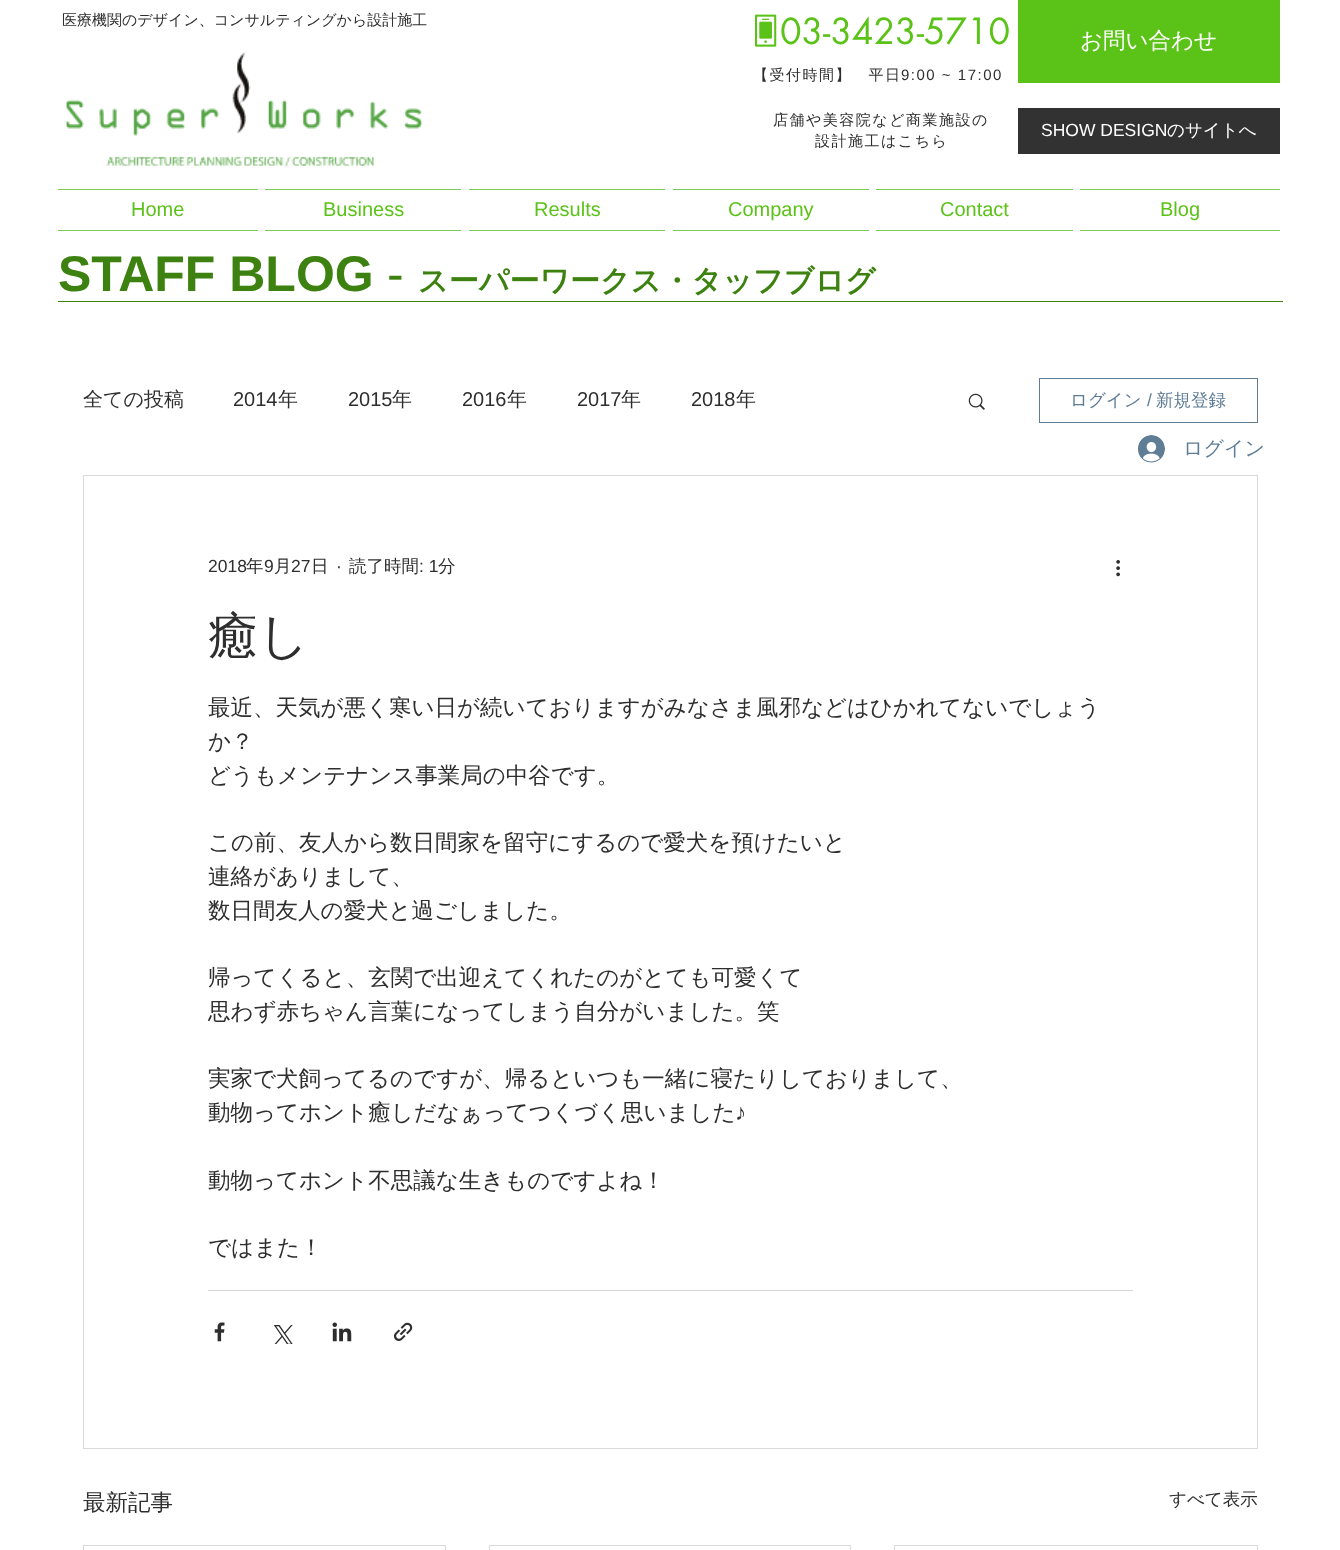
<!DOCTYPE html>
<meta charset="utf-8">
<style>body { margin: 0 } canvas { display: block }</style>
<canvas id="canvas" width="1340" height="1550"></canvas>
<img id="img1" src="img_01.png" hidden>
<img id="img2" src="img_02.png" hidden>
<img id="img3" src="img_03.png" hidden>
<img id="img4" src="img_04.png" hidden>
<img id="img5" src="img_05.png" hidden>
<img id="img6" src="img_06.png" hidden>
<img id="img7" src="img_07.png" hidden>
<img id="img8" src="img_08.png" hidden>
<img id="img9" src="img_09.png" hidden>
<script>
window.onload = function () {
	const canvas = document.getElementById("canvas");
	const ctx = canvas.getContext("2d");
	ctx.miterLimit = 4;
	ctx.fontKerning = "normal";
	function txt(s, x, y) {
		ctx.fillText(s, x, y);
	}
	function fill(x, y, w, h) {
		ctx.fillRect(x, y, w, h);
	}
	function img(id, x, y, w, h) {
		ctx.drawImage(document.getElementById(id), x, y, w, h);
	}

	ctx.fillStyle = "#FFFFFF";
	fill(0, 0, 1340, 1550);
	img("img1", 755, 14, 22, 33);
	ctx.fillStyle = "#5BC217";
	fill(1018, 0, 262, 83);
	img("img2", 66, 52, 357, 116);
	ctx.fillStyle = "#323232";
	fill(1018, 108, 262, 46);
	ctx.fillStyle = "#7AC959";
	fill(58, 189, 200, 1);
	fill(58, 230, 200, 1);
	fill(265, 189, 196, 1);
	fill(265, 230, 196, 1);
	fill(469, 189, 196, 1);
	fill(469, 230, 196, 1);
	fill(673, 189, 196, 1);
	fill(673, 230, 196, 1);
	fill(876, 189, 197, 1);
	fill(876, 230, 197, 1);
	fill(1080, 189, 200, 1);
	fill(1080, 230, 200, 1);
	ctx.fillStyle = "#3D8210";
	fill(58, 301, 1225, 1);
	img("img3", 968, 393, 17, 17);
	ctx.strokeStyle = "#607D96";
	ctx.strokeRect(1039.5, 378.5, 218, 44);
	ctx.strokeStyle = "#D9D9D9";
	ctx.strokeRect(83.5, 475.5, 1174, 973);
	img("img4", 1116, 560, 4, 17);
	ctx.fillStyle = "#D5D5D5";
	fill(208, 1290, 925, 1);
	img("img5", 214, 1322, 11, 20);
	img("img6", 273, 1325, 20, 19);
	img("img7", 332, 1322, 20, 20);
	img("img8", 394, 1322, 19, 19);
	ctx.strokeRect(83.5, 1545.5, 362, 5);
	ctx.strokeRect(489.5, 1545.5, 361, 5);
	ctx.strokeRect(894.5, 1545.5, 363, 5);
	img("img9", 1138, 435, 27, 28);
	ctx.font = "500 15px WenQuanYi Zen Hei";
	ctx.fillStyle = "#2F2E2E";
	txt("医療機関のデザイン、コンサルティングから設計施工", 62, 25);
	ctx.font = "35px futura";
	ctx.fillStyle = "#5BC217";
	txt("03-3423-5710", 780, 44);
	ctx.font = "500 22.5px WenQuanYi Zen Hei";
	ctx.fillStyle = "#FFFFFF";
	txt("お問い合わせ", 1080, 48);
	ctx.letterSpacing = "1.5px";
	ctx.font = "500 15px WenQuanYi Zen Hei";
	ctx.fillStyle = "#2F2E2E";
	txt("【受付時間】　平日", 753, 80);
	ctx.font = "15px Liberation Sans";
	txt("9:00 ~ 17:00", 901, 80);
	ctx.font = "500 15px WenQuanYi Zen Hei";
	txt("店舗や美容院など商業施設の", 773, 125);
	txt("設計施工はこちら", 815, 146);
	ctx.letterSpacing = "0px";
	ctx.font = "17.5px Liberation Sans";
	ctx.fillStyle = "#FFFFFF";
	txt("SHOW DESIGN", 1041, 136);
	ctx.font = "500 17.5px WenQuanYi Zen Hei";
	txt("のサイトへ", 1167, 136);
	ctx.font = "20px Liberation Sans";
	ctx.fillStyle = "#5BC217";
	txt("Home", 131, 216);
	txt("Business", 323, 216);
	txt("Results", 534, 216);
	txt("Company", 728, 216);
	txt("Contact", 940, 216);
	txt("Blog", 1160, 216);
	ctx.font = "bold 50px Liberation Sans";
	ctx.fillStyle = "#3D8210";
	txt("STAFF BLOG", 58, 291);
	ctx.font = "50px Liberation Sans";
	txt("-", 387, 291);
	ctx.font = "bold 30px WenQuanYi Zen Hei";
	txt("スーパーワークス・タッフブログ", 418, 291);
	ctx.font = "500 20px WenQuanYi Zen Hei";
	ctx.fillStyle = "#2F2E2E";
	txt("全ての投稿", 83, 406);
	ctx.font = "20px Liberation Sans";
	txt("2014", 233, 406);
	ctx.font = "500 20px WenQuanYi Zen Hei";
	txt("年", 278, 406);
	ctx.font = "20px Liberation Sans";
	txt("2015", 348, 406);
	ctx.font = "500 20px WenQuanYi Zen Hei";
	txt("年", 392, 406);
	ctx.font = "20px Liberation Sans";
	txt("2016", 462, 406);
	ctx.font = "500 20px WenQuanYi Zen Hei";
	txt("年", 507, 406);
	ctx.font = "20px Liberation Sans";
	txt("2017", 577, 406);
	ctx.font = "500 20px WenQuanYi Zen Hei";
	txt("年", 621, 406);
	ctx.font = "20px Liberation Sans";
	txt("2018", 691, 406);
	ctx.font = "500 20px WenQuanYi Zen Hei";
	txt("年", 736, 406);
	ctx.font = "500 17.5px WenQuanYi Zen Hei";
	ctx.fillStyle = "#607D96";
	txt("ログイン", 1070, 406);
	ctx.font = "17.5px Liberation Sans";
	txt("/", 1147, 406);
	ctx.font = "500 17.5px WenQuanYi Zen Hei";
	txt("新規登録", 1156, 406);
	ctx.font = "17.5px Liberation Sans";
	ctx.fillStyle = "#2F2E2E";
	txt("2018", 208, 572);
	ctx.font = "500 17.5px WenQuanYi Zen Hei";
	txt("年", 246, 572);
	ctx.font = "17.5px Liberation Sans";
	txt("9", 264, 572);
	ctx.font = "500 17.5px WenQuanYi Zen Hei";
	txt("月", 274, 572);
	ctx.font = "17.5px Liberation Sans";
	txt("27", 291, 572);
	ctx.font = "500 17.5px WenQuanYi Zen Hei";
	txt("日", 311, 572);
	ctx.font = "17.5px Liberation Sans";
	txt("·", 336, 572);
	ctx.font = "500 17.5px WenQuanYi Zen Hei";
	txt("読了時間", 349, 572);
	ctx.font = "17.5px Liberation Sans";
	txt(": 1", 419, 572);
	ctx.font = "500 17.5px WenQuanYi Zen Hei";
	txt("分", 438, 572);
	ctx.font = "500 50px WenQuanYi Zen Hei";
	txt("癒し", 208, 653);
	ctx.font = "500 22.5px WenQuanYi Zen Hei";
	txt("最近、天気が悪く寒い日が続いておりますがみなさま風邪などはひかれてないでしょう", 208, 715);
	txt("か？", 208, 749);
	txt("どうもメンテナンス事業局の中谷です。", 208, 783);
	txt("この前、友人から数日間家を留守にするので愛犬を預けたいと", 208, 850);
	txt("連絡がありまして、", 208, 884);
	txt("数日間友人の愛犬と過ごしました。", 208, 918);
	txt("帰ってくると、玄関で出迎えてくれたのがとても可愛くて", 208, 985);
	txt("思わず赤ちゃん言葉になってしまう自分がいました。笑", 208, 1019);
	txt("実家で犬飼ってるのですが、帰るといつも一緒に寝たりしておりまして、", 208, 1086);
	txt("動物ってホント癒しだなぁってつくづく思いました", 208, 1120);
	ctx.font = "22.5px Liberation Sans";
	txt("♪", 735, 1120);
	ctx.font = "500 22.5px WenQuanYi Zen Hei";
	txt("動物ってホント不思議な生きものですよね！", 208, 1188);
	txt("ではまた！", 208, 1255);
	txt("最新記事", 83, 1510);
	ctx.font = "500 17.5px WenQuanYi Zen Hei";
	txt("すべて表示", 1169, 1505);
	ctx.font = "500 20px WenQuanYi Zen Hei";
	ctx.fillStyle = "#607D96";
	txt("ログイン", 1183, 455);
};
</script>
